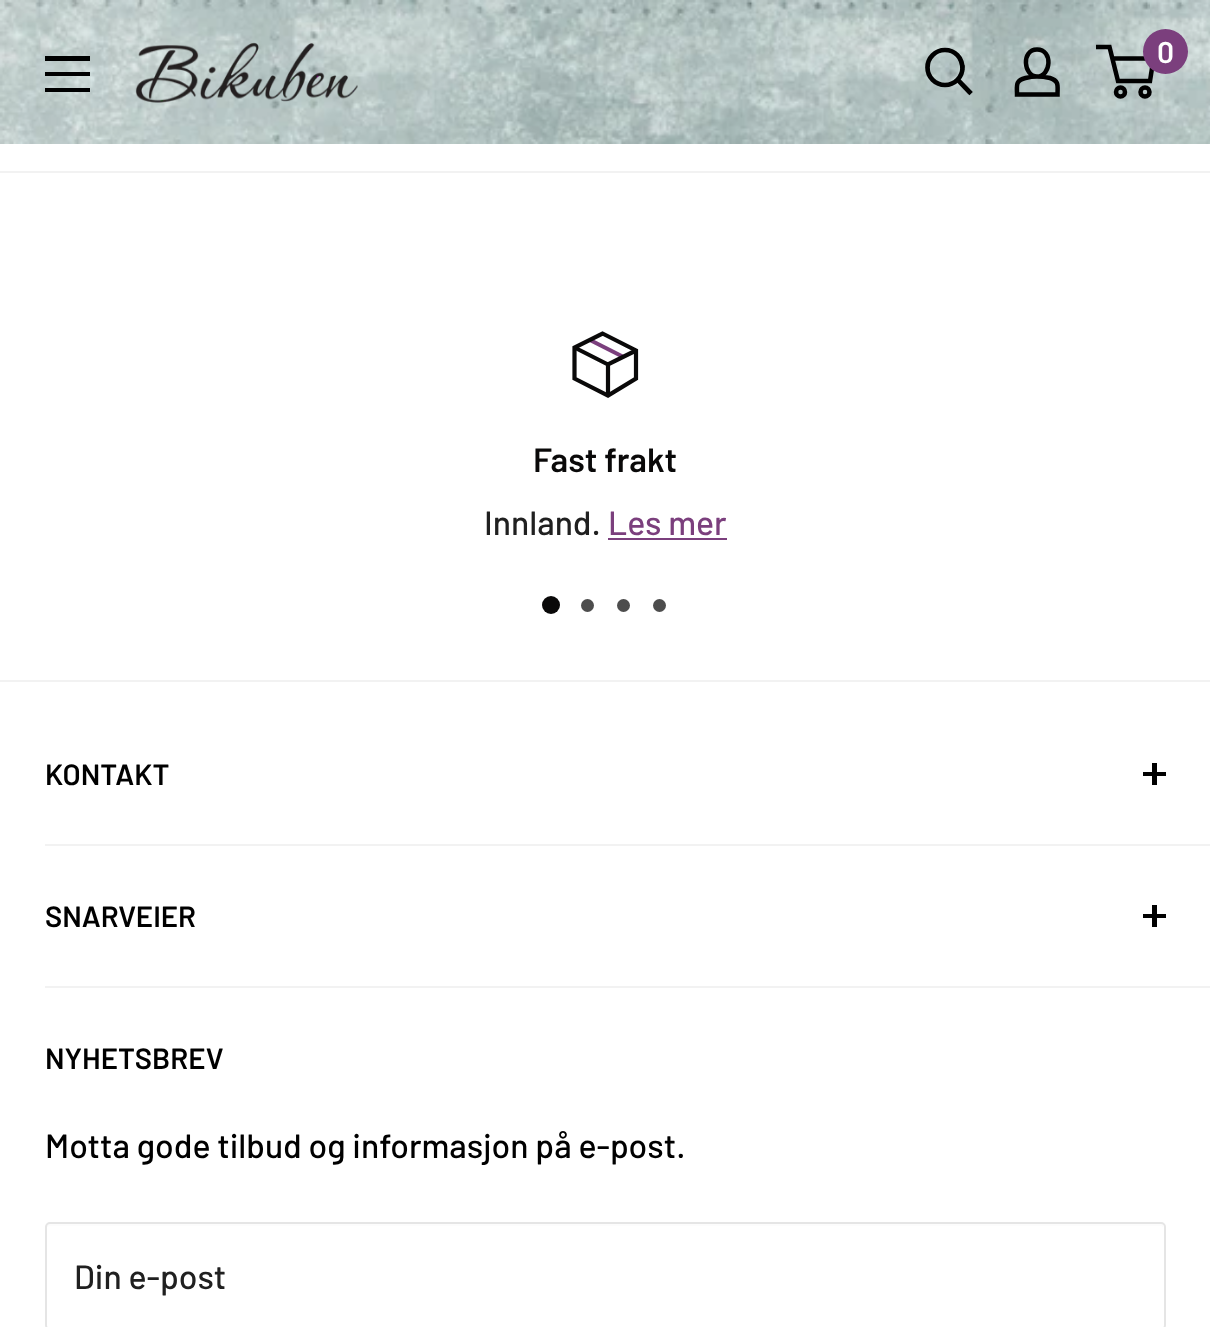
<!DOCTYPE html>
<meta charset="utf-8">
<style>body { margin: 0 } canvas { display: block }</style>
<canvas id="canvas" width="1210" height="1327"></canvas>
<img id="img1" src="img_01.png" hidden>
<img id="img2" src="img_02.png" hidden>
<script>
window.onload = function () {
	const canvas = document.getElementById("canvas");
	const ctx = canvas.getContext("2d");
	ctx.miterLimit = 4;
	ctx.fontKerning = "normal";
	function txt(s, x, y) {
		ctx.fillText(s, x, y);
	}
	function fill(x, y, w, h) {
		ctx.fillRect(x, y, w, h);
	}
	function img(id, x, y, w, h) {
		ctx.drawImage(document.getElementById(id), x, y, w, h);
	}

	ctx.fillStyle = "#FFFFFF";
	fill(0, 0, 1210, 1327);
	img("img1", 0, 0, 1210, 144);
	img("img2", 135, 42, 223, 61);
	ctx.beginPath();
	ctx.moveTo(969.5, 92);
	ctx.lineTo(958, 80);
	ctx.strokeStyle = "#000000";
	ctx.lineWidth = 4.7;
	ctx.lineCap = "square";
	ctx.stroke();
	ctx.beginPath();
	ctx.arc(945, 67.5, 17.5, 0, Math.PI * 2);
	ctx.stroke();
	ctx.beginPath();
	ctx.moveTo(1037, 76.5);
	ctx.bezierCurveTo(1041.5, 76.5, 1045.5, 77, 1050, 78);
	ctx.bezierCurveTo(1059.5, 81, 1057.5, 86, 1057.5, 94.5);
	ctx.lineTo(1017, 94.5);
	ctx.bezierCurveTo(1017, 85.5, 1015, 80.5, 1025.5, 78);
	ctx.bezierCurveTo(1029.5, 77, 1033.5, 76.5, 1037, 76.5);
	ctx.closePath();
	ctx.moveTo(1037, 76.5);
	ctx.bezierCurveTo(1023.5, 76.5, 1021, 49.5, 1037, 49.5);
	ctx.bezierCurveTo(1053.5, 49.5, 1051, 76.5, 1037, 76.5);
	ctx.closePath();
	ctx.lineWidth = 4.5;
	ctx.lineCap = "butt";
	ctx.stroke();
	ctx.beginPath();
	ctx.arc(1120.5, 92, 4.5, 0, Math.PI * 2);
	ctx.stroke();
	ctx.beginPath();
	ctx.arc(1145, 92, 4.5, 0, Math.PI * 2);
	ctx.stroke();
	ctx.beginPath();
	ctx.moveTo(1112, 58.5);
	ctx.lineTo(1153.5, 58.5);
	ctx.lineTo(1150, 81);
	ctx.lineTo(1118, 81);
	ctx.lineTo(1109.5, 47);
	ctx.lineTo(1096, 47);
	ctx.stroke();
	ctx.fillStyle = "#7B3F7D";
	ctx.beginPath();
	ctx.arc(1165.5, 51.5, 22.5, 0, Math.PI * 2);
	ctx.fill();
	ctx.fillStyle = "#000000";
	ctx.beginPath();
	ctx.moveTo(45, 88);
	ctx.lineTo(90, 88);
	ctx.lineTo(90, 92);
	ctx.lineTo(45, 92);
	ctx.closePath();
	ctx.moveTo(45, 56);
	ctx.lineTo(90, 56);
	ctx.lineTo(90, 61);
	ctx.lineTo(45, 61);
	ctx.closePath();
	ctx.moveTo(45, 72);
	ctx.lineTo(90, 72);
	ctx.lineTo(90, 76);
	ctx.lineTo(45, 76);
	ctx.closePath();
	ctx.fill("evenodd");
	ctx.fillStyle = "#F2F2F2";
	fill(0, 171, 1210, 2);
	ctx.beginPath();
	ctx.moveTo(590, 340);
	ctx.lineTo(623.5, 357);
	ctx.strokeStyle = "#7B3F7D";
	ctx.lineWidth = 4.2;
	ctx.stroke();
	ctx.beginPath();
	ctx.moveTo(636, 350.5);
	ctx.lineTo(608, 364.5);
	ctx.lineTo(574.5, 347.5);
	ctx.moveTo(608, 364.5);
	ctx.lineTo(608, 395.5);
	ctx.strokeStyle = "#0A0909";
	ctx.stroke();
	ctx.beginPath();
	ctx.moveTo(636, 350.5);
	ctx.lineTo(636, 378.5);
	ctx.lineTo(608, 395.5);
	ctx.lineTo(574.5, 378.5);
	ctx.lineTo(574.5, 347.5);
	ctx.lineTo(602.5, 333.5);
	ctx.closePath();
	ctx.lineCap = "square";
	ctx.stroke();
	ctx.fillStyle = "#7B3F7D";
	fill(608, 538, 119, 2);
	ctx.fillStyle = "#0A0909";
	ctx.beginPath();
	ctx.arc(551, 605, 9, 0, Math.PI * 2);
	ctx.fill();
	ctx.fillStyle = "#4D4D4D";
	ctx.beginPath();
	ctx.arc(587.5, 605.5, 6.5, 0, Math.PI * 2);
	ctx.fill();
	ctx.beginPath();
	ctx.arc(623.5, 605.5, 6.5, 0, Math.PI * 2);
	ctx.fill();
	ctx.beginPath();
	ctx.arc(659.5, 605.5, 6.5, 0, Math.PI * 2);
	ctx.fill();
	ctx.fillStyle = "#F2F2F2";
	fill(0, 680, 1210, 2);
	fill(45, 844, 1165, 2);
	ctx.fillStyle = "#000000";
	fill(1152, 763, 5, 22);
	fill(1143, 772, 23, 4);
	ctx.fillStyle = "#F2F2F2";
	fill(45, 986, 1165, 2);
	ctx.fillStyle = "#000000";
	fill(1152, 905, 5, 22);
	fill(1143, 914, 23, 4);
	ctx.fillStyle = "#FCFCFC";
	ctx.beginPath();
	ctx.moveTo(50, 1226);
	ctx.lineTo(1161, 1226);
	ctx.bezierCurveTo(1162, 1226, 1163, 1227, 1163, 1228);
	ctx.bezierCurveTo(1163, 1226, 1163, 1224, 1161, 1224);
	ctx.lineTo(48, 1224);
	ctx.lineTo(47, 1225);
	ctx.lineTo(47, 1228);
	ctx.bezierCurveTo(47, 1227, 48, 1226, 50, 1226);
	ctx.closePath();
	ctx.fill();
	ctx.beginPath();
	ctx.roundRect(46, 1223, 1119, 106, 4);
	ctx.strokeStyle = "#E5E5E5";
	ctx.lineWidth = 2;
	ctx.stroke();
	ctx.font = "600 30px Barlow";
	ctx.fillStyle = "#FFFFFF";
	txt("0", 1157, 63);
	ctx.font = "600 33.75px Barlow";
	ctx.fillStyle = "#0A0909";
	txt("Fast frakt", 533, 472);
	ctx.font = "500 33.75px Barlow";
	ctx.fillStyle = "#202020";
	txt("Innland.", 484, 535);
	ctx.fillStyle = "#7B3F7D";
	txt("Les mer", 608, 535);
	ctx.font = "600 29.25px Barlow";
	ctx.fillStyle = "#000000";
	txt("KONTAKT", 45, 785);
	txt("SNARVEIER", 45, 927);
	txt("NYHETSBREV", 45, 1069);
	ctx.font = "500 33.75px Barlow";
	txt("Motta gode tilbud og informasjon på e-post.", 45, 1158);
	ctx.fillStyle = "#202020";
	txt("Din e-post", 74, 1289);
};
</script>
